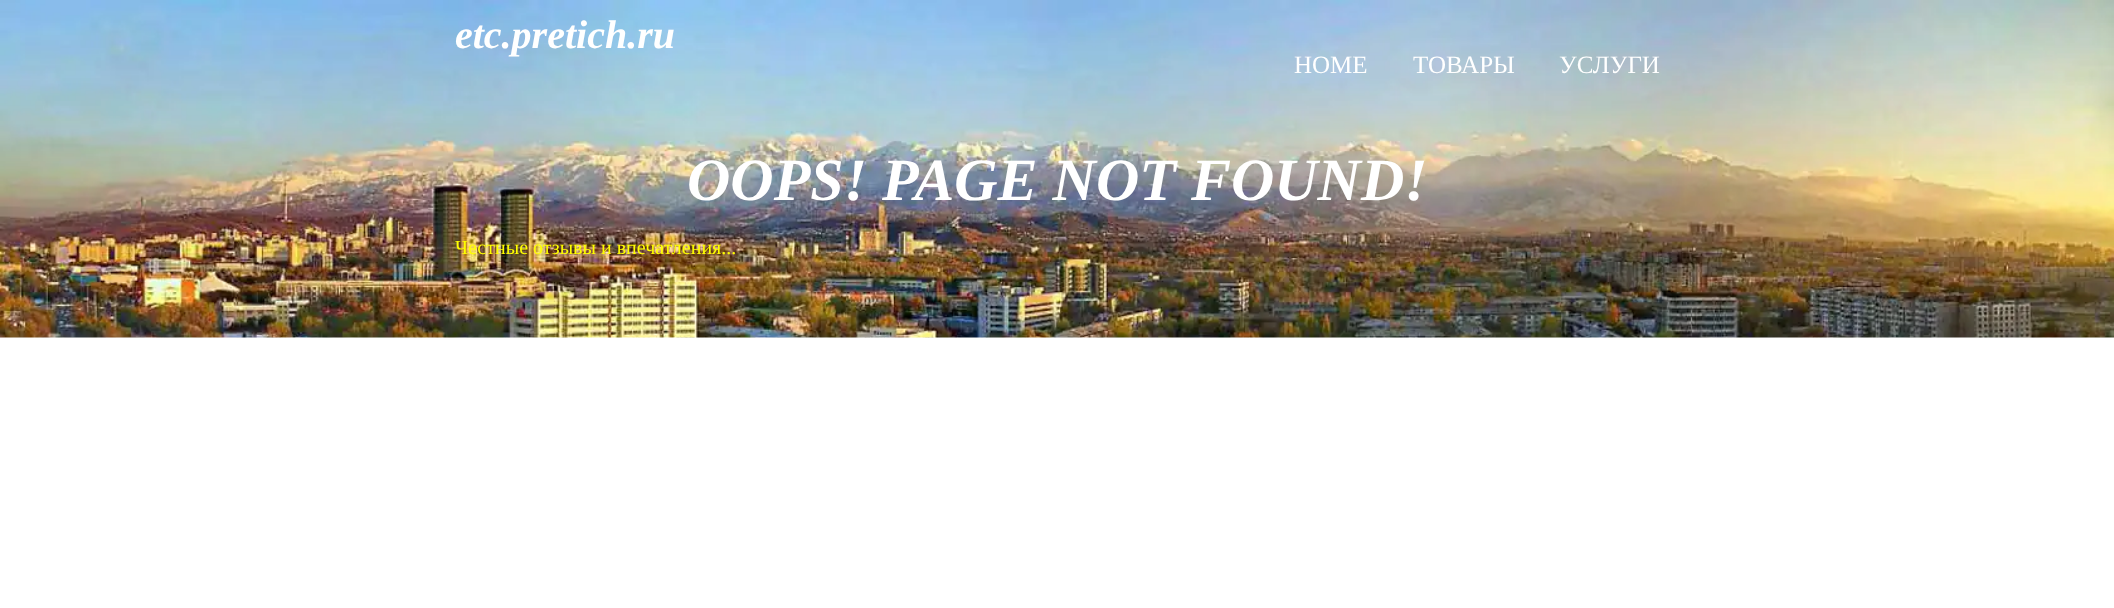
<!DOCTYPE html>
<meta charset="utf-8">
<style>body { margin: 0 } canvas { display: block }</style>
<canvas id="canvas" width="2114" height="608"></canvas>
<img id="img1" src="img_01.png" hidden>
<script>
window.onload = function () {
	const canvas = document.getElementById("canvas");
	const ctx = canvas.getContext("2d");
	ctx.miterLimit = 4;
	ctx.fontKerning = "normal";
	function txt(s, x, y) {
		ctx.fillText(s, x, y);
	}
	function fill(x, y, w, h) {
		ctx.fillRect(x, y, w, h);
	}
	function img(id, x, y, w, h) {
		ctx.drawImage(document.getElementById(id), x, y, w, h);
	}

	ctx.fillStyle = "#FFFFFF";
	fill(0, 0, 2114, 608);
	img("img1", 0, 0, 2114, 338);
	ctx.font = "italic bold 40px Liberation Serif";
	txt("etc.pretich.ru", 455, 48);
	ctx.font = "25px Liberation Serif";
	txt("HOME", 1294, 73);
	txt("ТОВАРЫ", 1413, 73);
	txt("УСЛУГИ", 1559, 73);
	ctx.font = "italic bold 60px Liberation Serif";
	txt("OOPS! PAGE NOT FOUND!", 687, 200);
	ctx.font = "20px Liberation Serif";
	ctx.fillStyle = "#FFFF00";
	txt("Честные отзывы и впечатления...", 455, 254);
};
</script>
